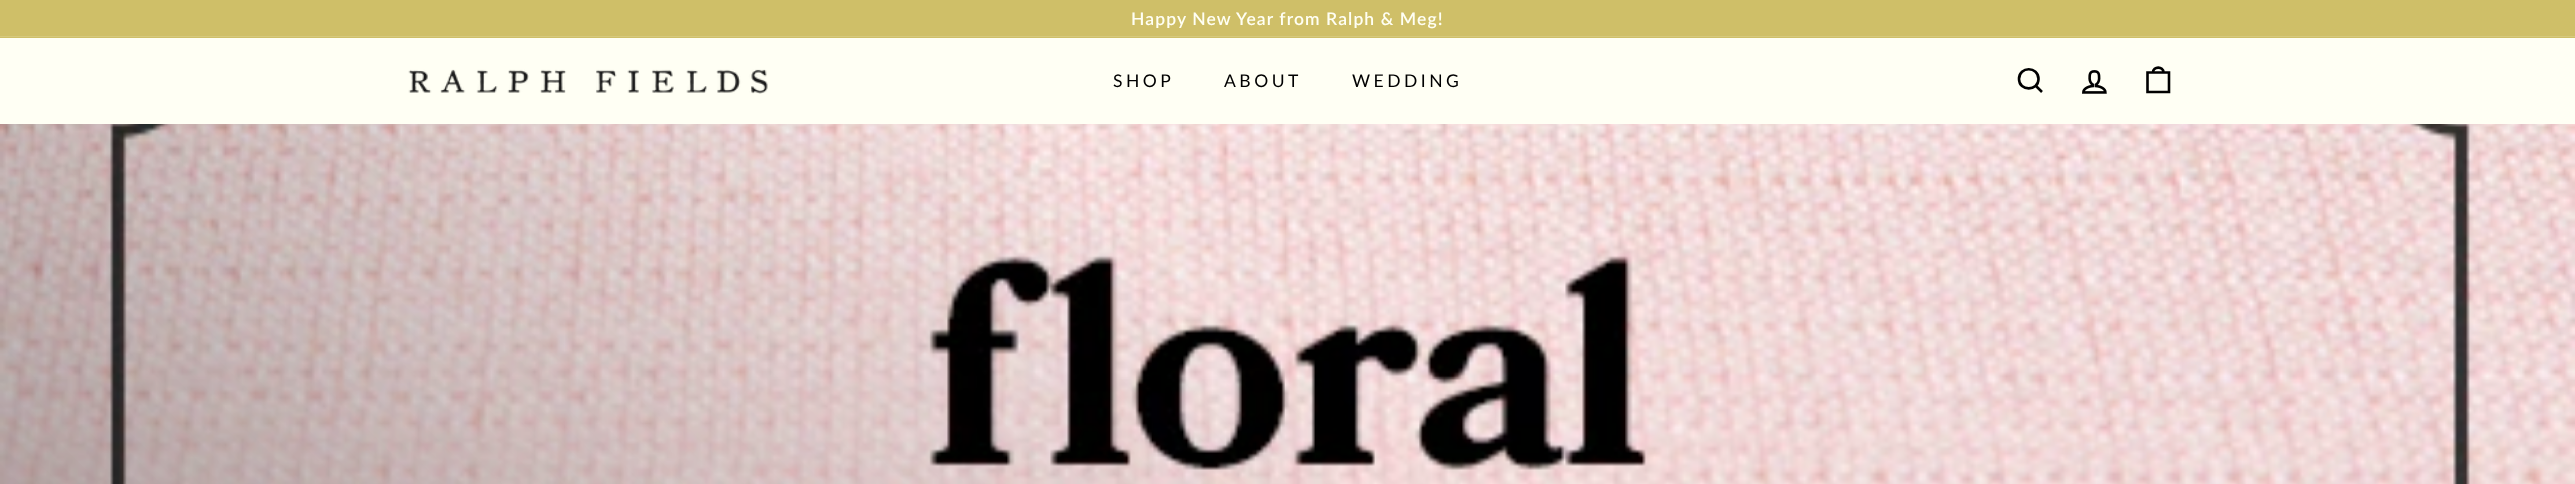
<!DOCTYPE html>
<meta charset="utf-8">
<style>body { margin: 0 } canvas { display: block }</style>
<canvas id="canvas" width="2575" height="484"></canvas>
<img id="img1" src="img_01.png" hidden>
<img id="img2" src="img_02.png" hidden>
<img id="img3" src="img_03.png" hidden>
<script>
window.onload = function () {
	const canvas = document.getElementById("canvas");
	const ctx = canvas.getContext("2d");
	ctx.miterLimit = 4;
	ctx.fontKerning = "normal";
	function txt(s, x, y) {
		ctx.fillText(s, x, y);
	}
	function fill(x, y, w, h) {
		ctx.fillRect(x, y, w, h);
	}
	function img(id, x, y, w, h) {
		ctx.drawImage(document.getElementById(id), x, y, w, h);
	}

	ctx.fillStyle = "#FFFFF4";
	fill(0, 0, 2575, 484);
	ctx.fillStyle = "#CFBF68";
	fill(0, 0, 2575, 38);
	ctx.fillStyle = "#D6C97D";
	fill(0, 36, 2575, 1);
	img("img1", 408, 69, 360, 25);
	ctx.beginPath();
	ctx.moveTo(2038.5, 79);
	ctx.bezierCurveTo(2038.5, 91.5, 2019, 91.5, 2019, 79);
	ctx.bezierCurveTo(2019, 66, 2038.5, 66, 2038.5, 79);
	ctx.closePath();
	ctx.moveTo(2042, 92);
	ctx.lineTo(2036, 86);
	ctx.strokeStyle = "#000000";
	ctx.lineWidth = 2.6;
	ctx.stroke();
	img("img2", 2082, 70, 25, 24);
	ctx.beginPath();
	ctx.moveTo(2153, 72.5);
	ctx.bezierCurveTo(2153, 66, 2163.5, 66, 2163.5, 72.5);
	ctx.moveTo(2147.5, 72.5);
	ctx.lineTo(2169, 72.5);
	ctx.lineTo(2169, 92);
	ctx.lineTo(2147.5, 92);
	ctx.closePath();
	ctx.stroke();
	img("img3", 0, 124, 2575, 360);
	ctx.letterSpacing = "1.1px";
	ctx.font = "600 17.5px Lato";
	ctx.fillStyle = "#FFFFF4";
	txt("Happy New Year from Ralph & Meg!", 1131, 25);
	ctx.letterSpacing = "3.5px";
	ctx.font = "17.5px Lato";
	ctx.fillStyle = "#000000";
	txt("SHOP", 1113, 87);
	txt("ABOUT", 1224, 87);
	txt("WEDDING", 1352, 87);
};
</script>
